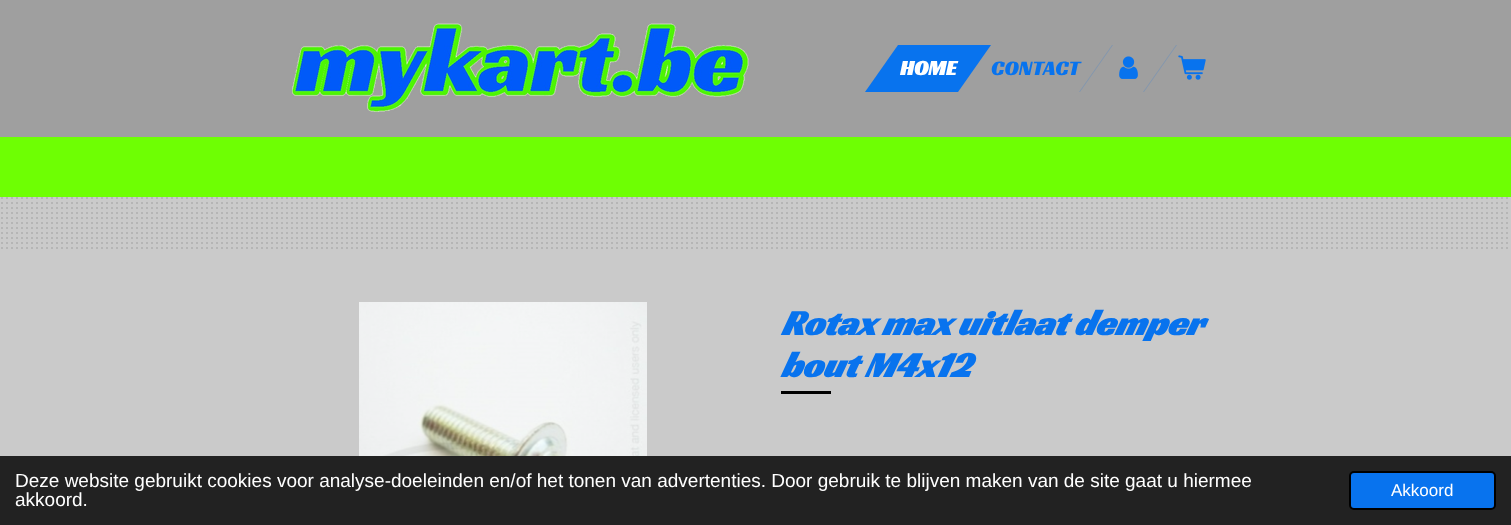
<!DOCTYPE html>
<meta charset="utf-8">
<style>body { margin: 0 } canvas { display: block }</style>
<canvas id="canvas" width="1511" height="525"></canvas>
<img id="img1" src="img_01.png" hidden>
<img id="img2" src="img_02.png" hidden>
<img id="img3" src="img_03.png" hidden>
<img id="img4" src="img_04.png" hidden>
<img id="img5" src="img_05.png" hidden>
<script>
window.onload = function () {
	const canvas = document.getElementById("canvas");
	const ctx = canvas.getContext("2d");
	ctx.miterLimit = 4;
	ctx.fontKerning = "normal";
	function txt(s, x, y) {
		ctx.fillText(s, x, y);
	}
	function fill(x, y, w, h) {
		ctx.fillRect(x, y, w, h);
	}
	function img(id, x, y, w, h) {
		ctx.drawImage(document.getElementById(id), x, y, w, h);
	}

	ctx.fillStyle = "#CACACA";
	fill(0, 0, 1511, 525);
	ctx.fillStyle = "#9F9F9F";
	fill(0, 0, 1511, 137);
	img("img1", 292, 23, 457, 89);
	ctx.fillStyle = "#0873EE";
	ctx.beginPath();
	ctx.moveTo(898, 45);
	ctx.lineTo(991, 45);
	ctx.lineTo(958, 92);
	ctx.lineTo(865, 92);
	ctx.closePath();
	ctx.fill();
	ctx.fillStyle = "#8196AF";
	ctx.beginPath();
	ctx.moveTo(1112, 45);
	ctx.lineTo(1113, 45);
	ctx.lineTo(1080, 92);
	ctx.lineTo(1079, 92);
	ctx.closePath();
	ctx.fill();
	img("img2", 1119, 56, 19, 23);
	ctx.beginPath();
	ctx.moveTo(1176, 45);
	ctx.lineTo(1177, 45);
	ctx.lineTo(1144, 92);
	ctx.lineTo(1143, 92);
	ctx.closePath();
	ctx.fill();
	img("img3", 1178, 55, 28, 25);
	img("img4", 1, 197, 1507, 52);
	ctx.fillStyle = "#6EFF03";
	fill(0, 137, 1511, 60);
	img("img5", 359, 302, 288, 154);
	ctx.fillStyle = "#000000";
	fill(781, 391, 50, 3);
	ctx.fillStyle = "#222222";
	fill(0, 456, 1511, 69);
	ctx.fillStyle = "#0873EE";
	ctx.beginPath();
	ctx.roundRect(1350, 472, 145, 37, 4);
	ctx.fill();
	ctx.strokeStyle = "#000000";
	ctx.lineWidth = 2;
	ctx.stroke();
	ctx.font = "bold 21px Racing Sans One";
	ctx.fillStyle = "#FFFFFF";
	txt("HOME", 900, 75);
	ctx.font = "21px Racing Sans One";
	ctx.fillStyle = "#0873EE";
	txt("CONTACT", 991, 75);
	ctx.font = "italic bold 36px Racing Sans One";
	txt("Rotax max uitlaat demper", 781, 335);
	txt("bout M4x12", 781, 377);
	ctx.font = "19px Liberation Sans";
	ctx.fillStyle = "#FFFFFF";
	txt("Deze website gebruikt cookies voor analyse-doeleinden en/of het tonen van advertenties. Door gebruik te blijven maken van de site gaat u hiermee", 15, 487);
	txt("akkoord.", 15, 506);
	ctx.font = "17px Liberation Sans";
	txt("Akkoord", 1391, 496);
};
</script>
